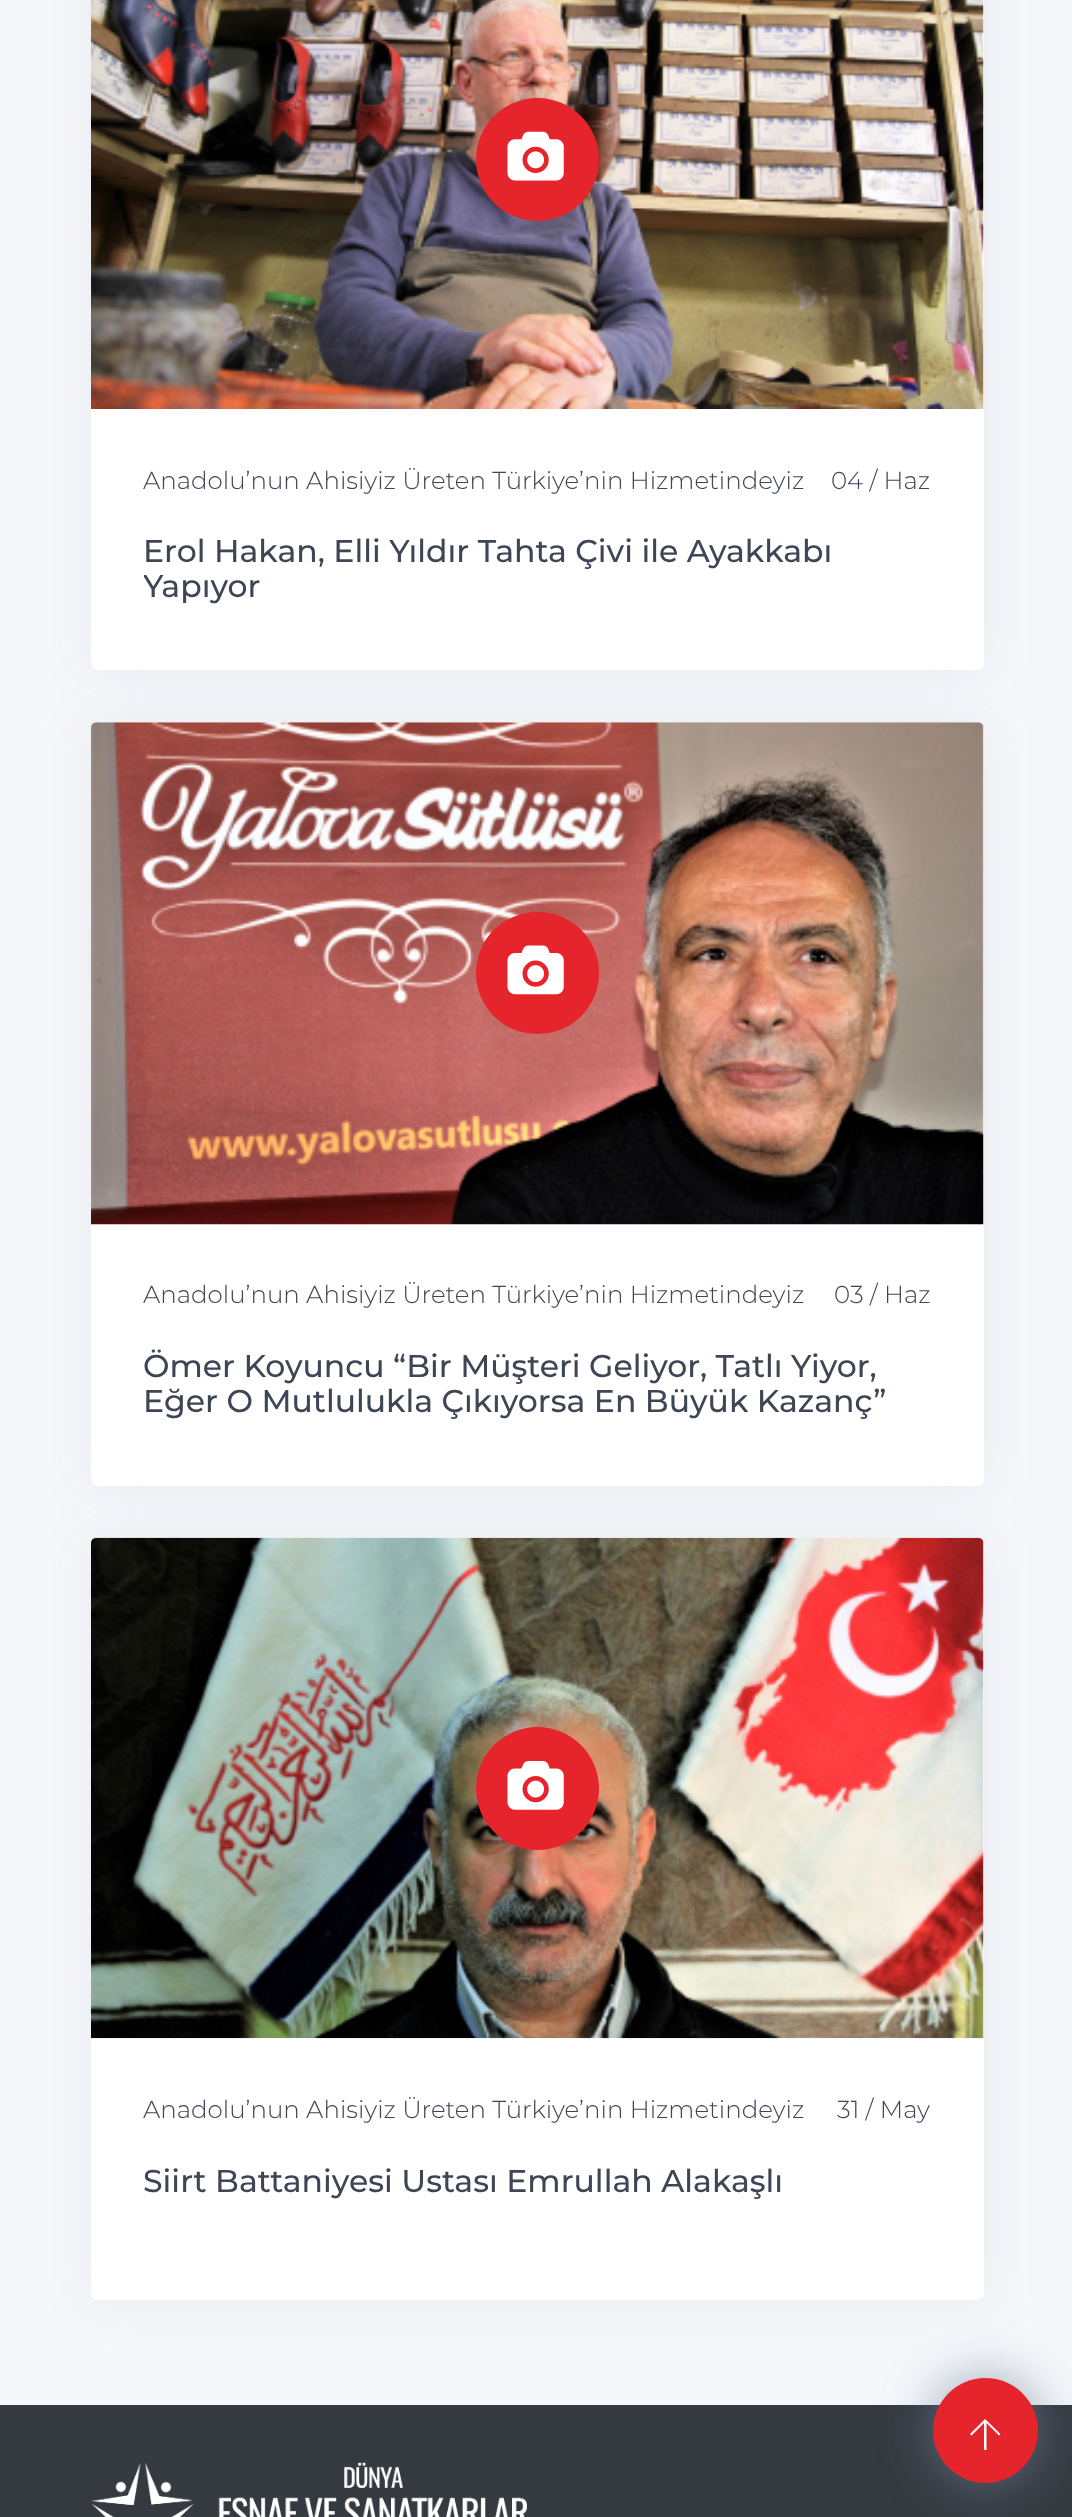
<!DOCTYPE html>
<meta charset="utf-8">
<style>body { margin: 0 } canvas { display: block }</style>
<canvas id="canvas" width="1072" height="2517"></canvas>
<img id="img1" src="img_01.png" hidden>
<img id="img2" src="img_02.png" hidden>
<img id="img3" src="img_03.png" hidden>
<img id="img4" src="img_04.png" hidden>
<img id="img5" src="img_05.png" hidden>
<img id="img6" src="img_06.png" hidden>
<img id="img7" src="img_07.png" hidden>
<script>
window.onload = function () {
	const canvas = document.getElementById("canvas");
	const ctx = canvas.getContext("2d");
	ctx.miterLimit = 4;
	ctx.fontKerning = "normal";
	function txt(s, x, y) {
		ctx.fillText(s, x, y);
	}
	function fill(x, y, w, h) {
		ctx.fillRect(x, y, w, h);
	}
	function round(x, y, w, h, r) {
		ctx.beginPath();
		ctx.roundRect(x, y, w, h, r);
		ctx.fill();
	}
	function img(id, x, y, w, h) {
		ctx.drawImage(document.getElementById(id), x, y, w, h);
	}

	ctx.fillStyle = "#F5F7FA";
	fill(0, 0, 1072, 2517);
	ctx.fillStyle = "rgba(115, 128, 157, 0.1)";
	ctx.filter = "blur(26px)";
	ctx.beginPath();
	ctx.roundRect(91, -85, 893, 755, 7);
	ctx.fill();
	ctx.filter = "none";
	ctx.fillStyle = "#FFFFFF";
	round(91, -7, 893, 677, 7);
	img("img1", 91, 0, 893, 409);
	ctx.fillStyle = "#E6242C";
	ctx.beginPath();
	ctx.arc(537.5, 159.5, 61.5, 0, Math.PI * 2);
	ctx.fill();
	img("img2", 507, 131, 57, 50);
	ctx.fillStyle = "rgba(115, 128, 157, 0.1)";
	ctx.filter = "blur(26px)";
	ctx.beginPath();
	ctx.roundRect(91, 723, 893, 763, 7);
	ctx.fill();
	ctx.filter = "none";
	ctx.fillStyle = "#FFFFFF";
	round(91, 723, 893, 763, 7);
	img("img3", 91, 722, 893, 503);
	ctx.fillStyle = "#E6242C";
	round(476, 912, 123, 122, 61);
	img("img4", 507, 945, 57, 50);
	ctx.fillStyle = "rgba(115, 128, 157, 0.1)";
	ctx.filter = "blur(26px)";
	ctx.beginPath();
	ctx.roundRect(91, 1538, 893, 762, 7);
	ctx.fill();
	ctx.filter = "none";
	ctx.fillStyle = "#FFFFFF";
	round(91, 1538, 893, 762, 7);
	img("img5", 91, 1537, 893, 502);
	ctx.fillStyle = "#E6242C";
	ctx.beginPath();
	ctx.arc(537.5, 1788.5, 61.5, 0, Math.PI * 2);
	ctx.fill();
	img("img6", 507, 1761, 57, 49);
	ctx.fillStyle = "#343A40";
	fill(0, 2405, 1072, 112);
	ctx.fillStyle = "rgba(115, 128, 157, 0.7)";
	ctx.filter = "blur(26px)";
	ctx.beginPath();
	ctx.roundRect(933, 2378, 105, 105, 52.5);
	ctx.fill();
	ctx.filter = "none";
	ctx.fillStyle = "#E6242C";
	ctx.beginPath();
	ctx.arc(985.5, 2430.5, 52.5, 0, Math.PI * 2);
	ctx.fill();
	ctx.fillStyle = "#FFFFFF";
	ctx.beginPath();
	ctx.moveTo(999, 2435.5);
	ctx.lineTo(986.5, 2423);
	ctx.lineTo(986.5, 2450);
	ctx.lineTo(984, 2450);
	ctx.lineTo(984, 2423);
	ctx.lineTo(971.5, 2435.5);
	ctx.lineTo(970, 2434);
	ctx.lineTo(985, 2419);
	ctx.lineTo(1000.5, 2434);
	ctx.closePath();
	ctx.fill();
	img("img7", 91, 2462, 436, 55);
	ctx.font = "300 24.5px Montserrat";
	ctx.fillStyle = "#3E4555";
	txt("Anadolu’nun Ahisiyiz Üreten Türkiye’nin Hizmetindeyiz", 143, 489);
	txt("04 / Haz", 831, 489);
	ctx.font = "500 31.5px Montserrat";
	txt("Erol Hakan, Elli Yıldır Tahta Çivi ile Ayakkabı", 143, 562);
	ctx.save();
	ctx.beginPath();
	ctx.rect(144, 534, 787, 70);
	ctx.clip();
	txt("Yapıyor", 143, 597);
	ctx.restore();
	ctx.font = "300 24.5px Montserrat";
	txt("Anadolu’nun Ahisiyiz Üreten Türkiye’nin Hizmetindeyiz", 143, 1303);
	txt("03 / Haz", 834, 1303);
	ctx.font = "500 31.5px Montserrat";
	txt("Ömer Koyuncu “Bir Müşteri Geliyor, Tatlı Yiyor,", 143, 1377);
	txt("Eğer O Mutlulukla Çıkıyorsa En Büyük Kazanç”", 143, 1412);
	ctx.font = "300 24.5px Montserrat";
	txt("Anadolu’nun Ahisiyiz Üreten Türkiye’nin Hizmetindeyiz", 143, 2118);
	txt("31 / May", 837, 2118);
	ctx.font = "500 31.5px Montserrat";
	txt("Siirt Battaniyesi Ustası Emrullah Alakaşlı", 143, 2192);
};
</script>
